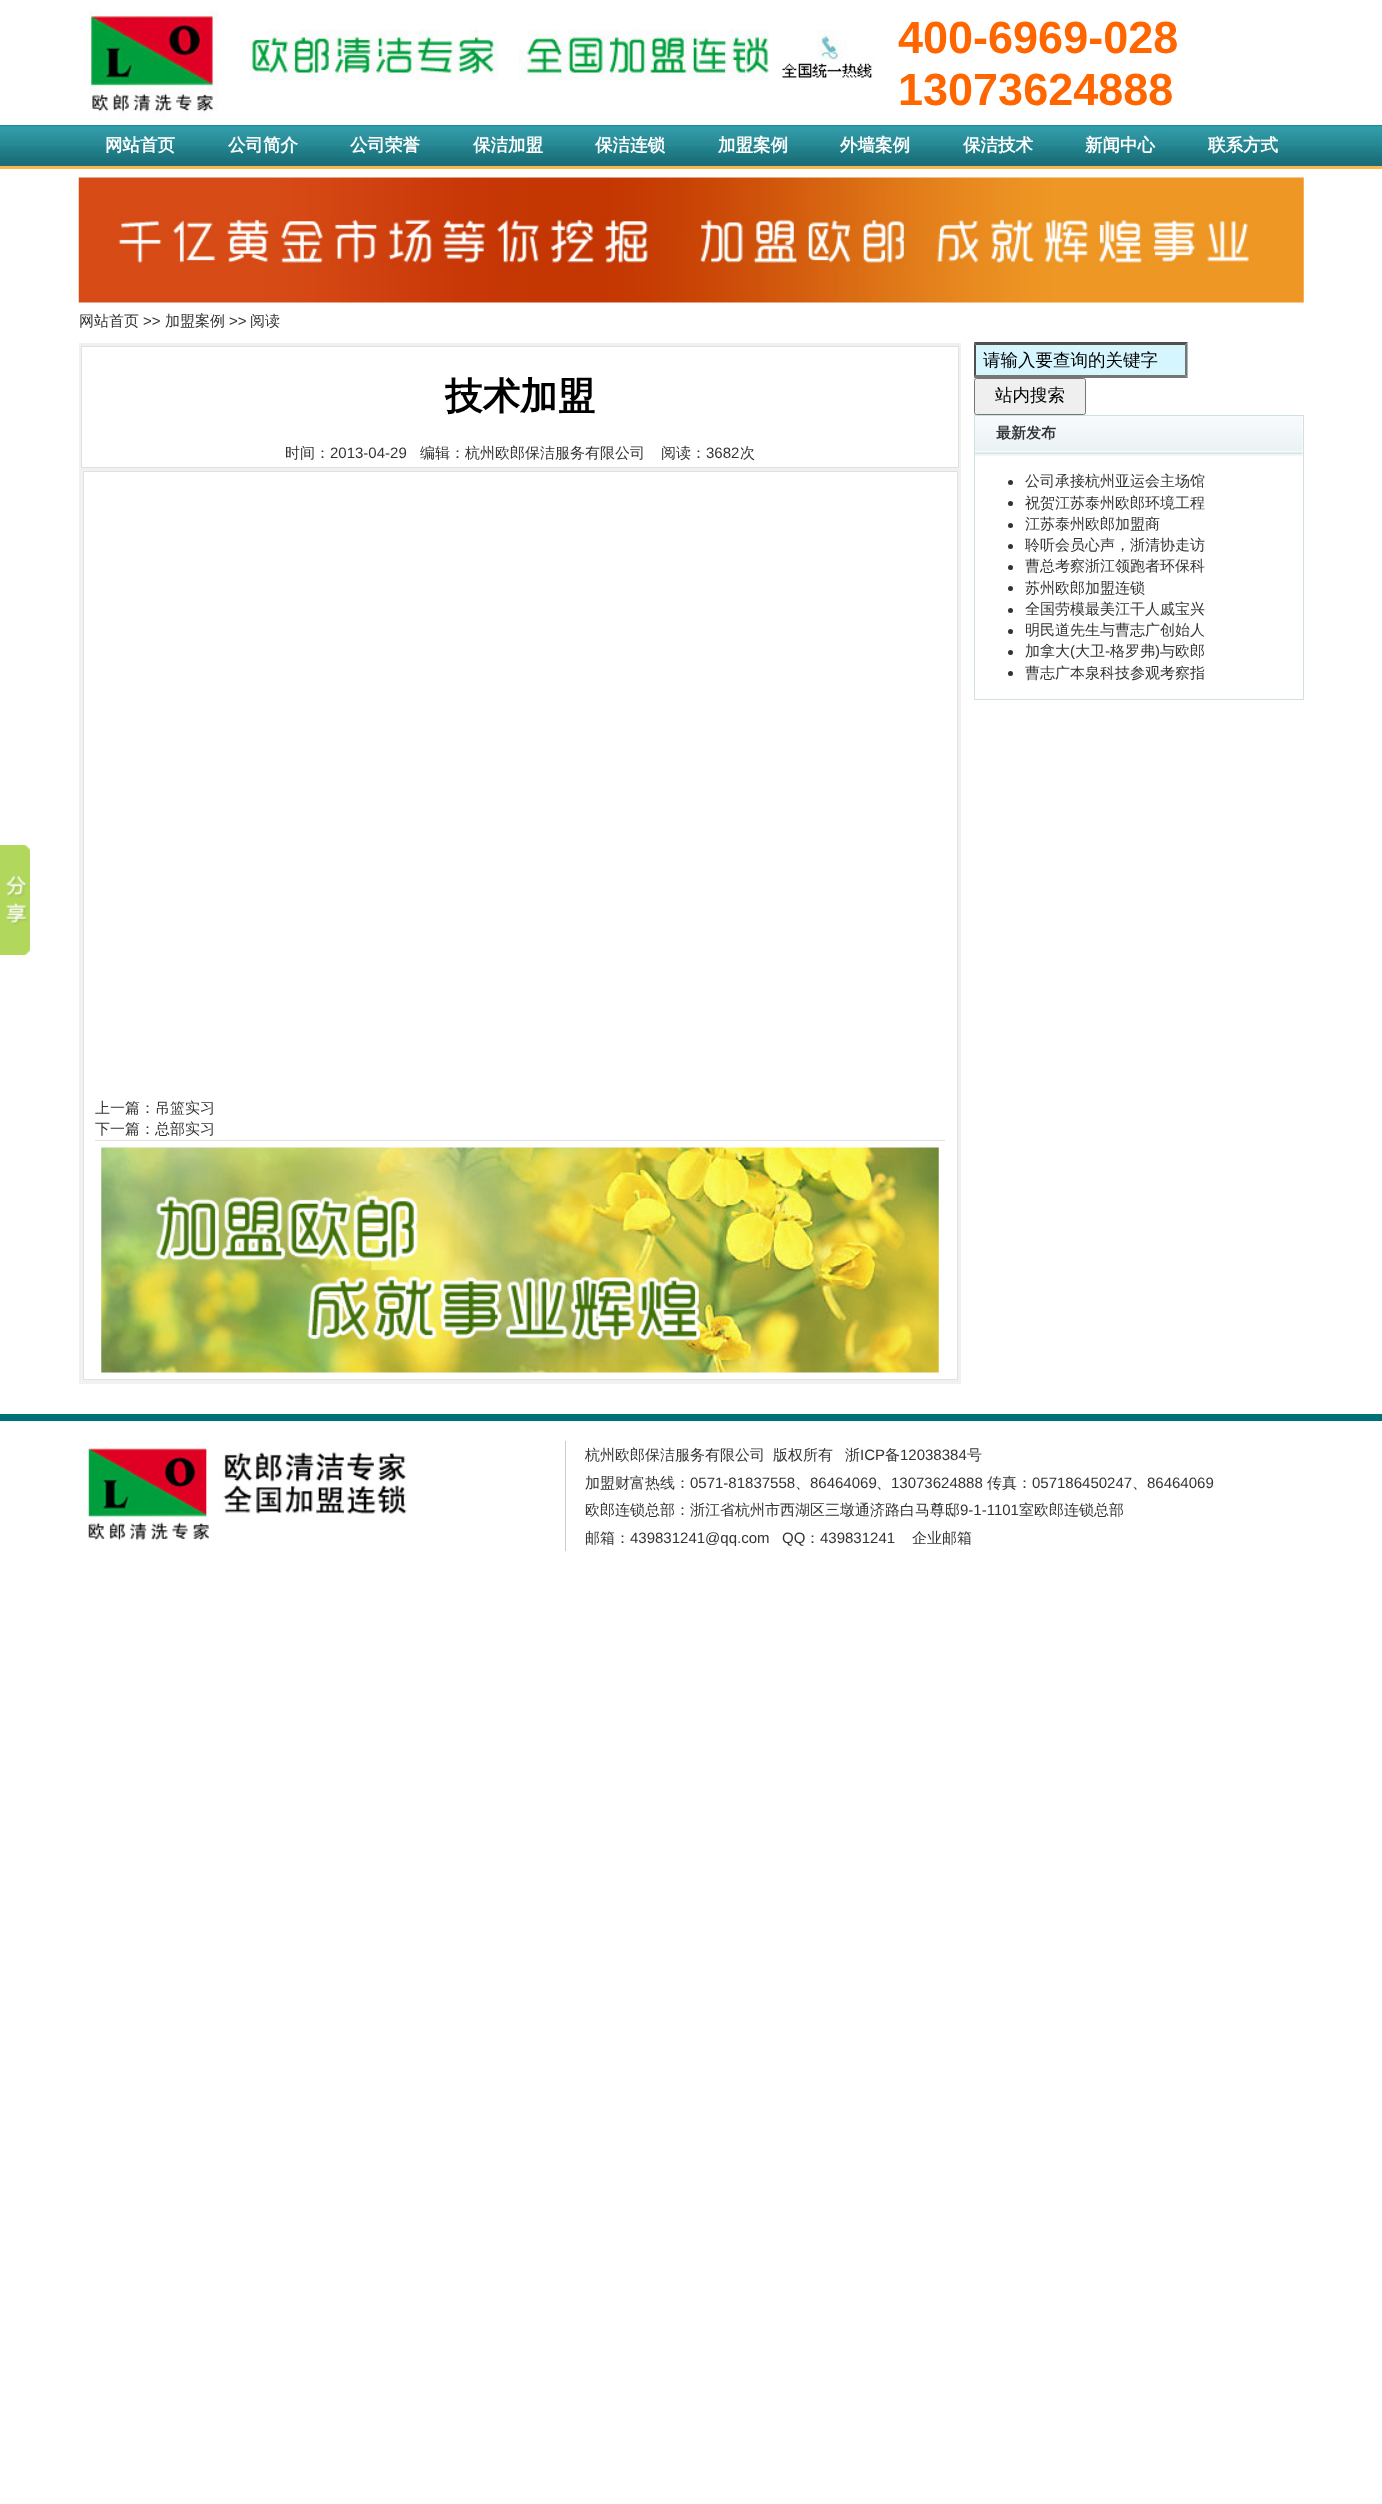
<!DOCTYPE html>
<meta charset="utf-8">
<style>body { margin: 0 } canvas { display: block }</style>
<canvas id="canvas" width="1382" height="2504"></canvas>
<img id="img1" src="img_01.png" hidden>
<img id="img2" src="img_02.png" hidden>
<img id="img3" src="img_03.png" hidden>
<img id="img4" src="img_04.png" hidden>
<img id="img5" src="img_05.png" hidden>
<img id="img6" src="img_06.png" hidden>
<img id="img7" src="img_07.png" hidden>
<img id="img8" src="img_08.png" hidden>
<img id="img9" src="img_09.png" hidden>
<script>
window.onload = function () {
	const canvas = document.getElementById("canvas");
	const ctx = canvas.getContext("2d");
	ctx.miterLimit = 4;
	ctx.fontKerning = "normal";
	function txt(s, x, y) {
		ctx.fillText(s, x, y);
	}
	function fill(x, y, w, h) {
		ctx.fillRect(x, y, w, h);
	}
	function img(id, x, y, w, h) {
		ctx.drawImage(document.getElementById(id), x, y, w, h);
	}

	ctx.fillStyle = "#FFFFFF";
	fill(0, 0, 1382, 2504);
	img("img1", 89, 10, 785, 109);
	img("img2", 0, 125, 1382, 41);
	ctx.fillStyle = "#FFB74A";
	fill(0, 166, 1382, 3);
	img("img3", 78, 177, 1226, 126);
	img("img4", 0, 845, 30, 110);
	ctx.fillStyle = "#F1F1F1";
	fill(79, 343, 882, 1041);
	ctx.fillStyle = "#FFFFFF";
	ctx.beginPath();
	ctx.rect(81.5, 346.5, 877, 121);
	ctx.fill();
	ctx.strokeStyle = "#E0E0E0";
	ctx.stroke();
	ctx.beginPath();
	ctx.rect(83.5, 471.5, 874, 908);
	ctx.fill();
	ctx.stroke();
	ctx.fillStyle = "#E0E0E0";
	fill(95, 1140, 850, 1);
	img("img5", 101, 1147, 838, 226);
	ctx.fillStyle = "#D6F6FF";
	fill(974, 343, 214, 35);
	ctx.fillStyle = "#4F4F4F";
	ctx.beginPath();
	ctx.moveTo(974, 342);
	ctx.lineTo(1188, 342);
	ctx.lineTo(1185, 345);
	ctx.lineTo(976, 345);
	ctx.closePath();
	ctx.fill();
	ctx.fillStyle = "#767676";
	ctx.beginPath();
	ctx.moveTo(1187.5, 342.5);
	ctx.lineTo(1187.5, 377.5);
	ctx.lineTo(1185, 375);
	ctx.lineTo(1185, 345);
	ctx.closePath();
	ctx.fill();
	ctx.beginPath();
	ctx.moveTo(1188, 378);
	ctx.lineTo(974, 378);
	ctx.lineTo(976, 375);
	ctx.lineTo(1185, 375);
	ctx.closePath();
	ctx.fill();
	ctx.fillStyle = "#4F4F4F";
	ctx.beginPath();
	ctx.moveTo(974, 377.5);
	ctx.lineTo(974, 342.5);
	ctx.lineTo(976, 345);
	ctx.lineTo(976, 375);
	ctx.closePath();
	ctx.fill();
	ctx.fillStyle = "#EFEFEF";
	ctx.beginPath();
	ctx.roundRect(974.5, 378.5, 111, 36, 2);
	ctx.fill();
	ctx.strokeStyle = "#767676";
	ctx.stroke();
	ctx.strokeStyle = "#D0E1E3";
	ctx.strokeRect(974.5, 415.5, 329, 284);
	img("img6", 975, 416, 270, 36);
	img("img7", 1245, 416, 58, 36);
	img("img8", 975, 451, 328, 5);
	ctx.fillStyle = "#333333";
	ctx.beginPath();
	ctx.arc(1010.5, 482.5, 2.5, 0, Math.PI * 2);
	ctx.fill();
	ctx.beginPath();
	ctx.arc(1010.5, 503.5, 2.5, 0, Math.PI * 2);
	ctx.fill();
	ctx.beginPath();
	ctx.arc(1010.5, 525.5, 2.5, 0, Math.PI * 2);
	ctx.fill();
	ctx.beginPath();
	ctx.arc(1010.5, 546.5, 2.5, 0, Math.PI * 2);
	ctx.fill();
	ctx.beginPath();
	ctx.arc(1010.5, 567.5, 2.5, 0, Math.PI * 2);
	ctx.fill();
	ctx.beginPath();
	ctx.arc(1010.5, 588.5, 2.5, 0, Math.PI * 2);
	ctx.fill();
	ctx.beginPath();
	ctx.arc(1010.5, 610.5, 2.5, 0, Math.PI * 2);
	ctx.fill();
	ctx.beginPath();
	ctx.arc(1010.5, 631.5, 2.5, 0, Math.PI * 2);
	ctx.fill();
	ctx.beginPath();
	ctx.arc(1010.5, 652.5, 2.5, 0, Math.PI * 2);
	ctx.fill();
	ctx.beginPath();
	ctx.arc(1010.5, 673.5, 2.5, 0, Math.PI * 2);
	ctx.fill();
	ctx.fillStyle = "#007078";
	fill(0, 1414, 1382, 7);
	img("img9", 88, 1448, 319, 93);
	ctx.fillStyle = "#CCCCCC";
	fill(565, 1441, 1, 110);
	ctx.font = "bold 45px Liberation Sans";
	ctx.fillStyle = "#FF6600";
	txt("400-6969-028", 898, 53);
	txt("13073624888", 898, 105);
	ctx.font = "bold 17.5px WenQuanYi Zen Hei";
	ctx.fillStyle = "#FFFFFF";
	txt("网站首页", 105, 151);
	txt("公司简介", 228, 151);
	txt("公司荣誉", 350, 151);
	txt("保洁加盟", 473, 151);
	txt("保洁连锁", 595, 151);
	txt("加盟案例", 718, 151);
	txt("外墙案例", 840, 151);
	txt("保洁技术", 963, 151);
	txt("新闻中心", 1085, 151);
	txt("联系方式", 1208, 151);
	ctx.font = "500 15px WenQuanYi Zen Hei";
	ctx.fillStyle = "#333333";
	txt("网站首页", 79, 326);
	ctx.font = "15px Liberation Sans";
	txt(">>", 143, 326);
	ctx.font = "500 15px WenQuanYi Zen Hei";
	txt("加盟案例", 165, 326);
	ctx.font = "15px Liberation Sans";
	txt(">>", 229, 326);
	ctx.font = "500 15px WenQuanYi Zen Hei";
	txt("阅读", 250, 326);
	ctx.font = "bold 37.5px WenQuanYi Zen Hei";
	ctx.fillStyle = "#000000";
	txt("技术加盟", 445, 409);
	ctx.font = "500 15px WenQuanYi Zen Hei";
	ctx.fillStyle = "#333333";
	txt("时间：", 285, 458);
	ctx.font = "15px Liberation Sans";
	txt("2013-04-29", 330, 458);
	ctx.font = "500 15px WenQuanYi Zen Hei";
	txt("编辑：杭州欧郎保洁服务有限公司", 420, 458);
	txt("阅读：", 661, 458);
	ctx.font = "15px Liberation Sans";
	txt("3682", 706, 458);
	ctx.font = "500 15px WenQuanYi Zen Hei";
	txt("次", 740, 458);
	txt("上一篇：吊篮实习", 95, 1113);
	txt("下一篇：总部实习", 95, 1134);
	ctx.font = "500 17.5px WenQuanYi Zen Hei";
	ctx.fillStyle = "#000000";
	txt("请输入要查询的关键字", 983, 366);
	txt("站内搜索", 995, 401);
	ctx.font = "bold 15px WenQuanYi Zen Hei";
	ctx.fillStyle = "#333333";
	txt("最新发布", 996, 438);
	ctx.font = "500 15px WenQuanYi Zen Hei";
	txt("公司承接杭州亚运会主场馆", 1025, 486);
	txt("祝贺江苏泰州欧郎环境工程", 1025, 508);
	txt("江苏泰州欧郎加盟商", 1025, 529);
	txt("聆听会员心声，浙清协走访", 1025, 550);
	txt("曹总考察浙江领跑者环保科", 1025, 571);
	txt("苏州欧郎加盟连锁", 1025, 593);
	txt("全国劳模最美江干人戚宝兴", 1025, 614);
	txt("明民道先生与曹志广创始人", 1025, 635);
	txt("加拿大", 1025, 656);
	ctx.font = "15px Liberation Sans";
	txt("(", 1070, 656);
	ctx.font = "500 15px WenQuanYi Zen Hei";
	txt("大卫", 1075, 656);
	ctx.font = "15px Liberation Sans";
	txt("-", 1105, 656);
	ctx.font = "500 15px WenQuanYi Zen Hei";
	txt("格罗弗", 1110, 656);
	ctx.font = "15px Liberation Sans";
	txt(")", 1155, 656);
	ctx.font = "500 15px WenQuanYi Zen Hei";
	txt("与欧郎", 1160, 656);
	txt("曹志广本泉科技参观考察指", 1025, 678);
	txt("杭州欧郎保洁服务有限公司", 585, 1460);
	txt("版权所有", 773, 1460);
	txt("浙", 845, 1460);
	ctx.font = "15px Liberation Sans";
	txt("ICP", 860, 1460);
	ctx.font = "500 15px WenQuanYi Zen Hei";
	txt("备", 885, 1460);
	ctx.font = "15px Liberation Sans";
	txt("12038384", 900, 1460);
	ctx.font = "500 15px WenQuanYi Zen Hei";
	txt("号", 967, 1460);
	txt("加盟财富热线：", 585, 1488);
	ctx.font = "15px Liberation Sans";
	txt("0571-81837558", 690, 1488);
	ctx.font = "500 15px WenQuanYi Zen Hei";
	txt("、", 795, 1488);
	ctx.font = "15px Liberation Sans";
	txt("86464069", 810, 1488);
	ctx.font = "500 15px WenQuanYi Zen Hei";
	txt("、", 876, 1488);
	ctx.font = "15px Liberation Sans";
	txt("13073624888", 891, 1488);
	ctx.font = "500 15px WenQuanYi Zen Hei";
	txt("传真：", 987, 1488);
	ctx.font = "15px Liberation Sans";
	txt("057186450247", 1032, 1488);
	ctx.font = "500 15px WenQuanYi Zen Hei";
	txt("、", 1132, 1488);
	ctx.font = "15px Liberation Sans";
	txt("86464069", 1147, 1488);
	ctx.font = "500 15px WenQuanYi Zen Hei";
	txt("欧郎连锁总部：浙江省杭州市西湖区三墩通济路白马尊邸", 585, 1515);
	ctx.font = "15px Liberation Sans";
	txt("9-1-1101", 960, 1515);
	ctx.font = "500 15px WenQuanYi Zen Hei";
	txt("室欧郎连锁总部", 1019, 1515);
	txt("邮箱：", 585, 1543);
	ctx.font = "15px Liberation Sans";
	txt("439831241@qq.com   QQ", 630, 1543);
	ctx.font = "500 15px WenQuanYi Zen Hei";
	txt("：", 805, 1543);
	ctx.font = "15px Liberation Sans";
	txt("439831241", 820, 1543);
	ctx.font = "500 15px WenQuanYi Zen Hei";
	txt("企业邮箱", 912, 1543);
};
</script>
